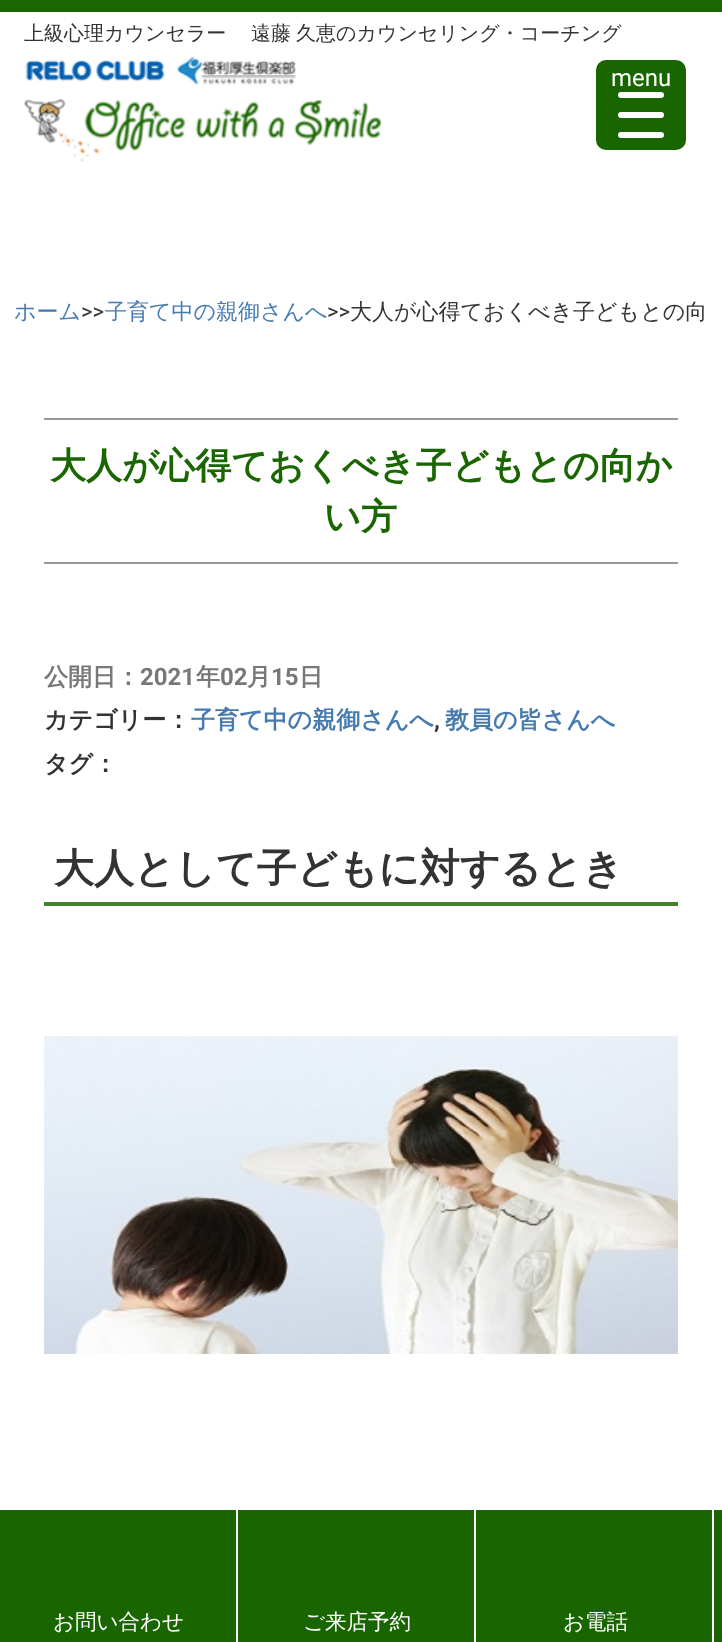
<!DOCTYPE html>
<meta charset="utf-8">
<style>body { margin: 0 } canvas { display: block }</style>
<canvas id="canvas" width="722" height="1642"></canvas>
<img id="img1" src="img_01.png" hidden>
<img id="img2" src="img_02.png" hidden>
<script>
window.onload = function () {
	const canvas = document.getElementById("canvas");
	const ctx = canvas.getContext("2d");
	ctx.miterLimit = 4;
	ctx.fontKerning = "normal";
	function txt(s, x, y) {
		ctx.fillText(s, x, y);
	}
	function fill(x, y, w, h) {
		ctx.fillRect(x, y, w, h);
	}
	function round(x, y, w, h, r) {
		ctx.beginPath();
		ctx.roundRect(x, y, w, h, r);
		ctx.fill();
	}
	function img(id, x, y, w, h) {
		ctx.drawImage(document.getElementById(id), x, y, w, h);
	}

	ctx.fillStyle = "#FFFFFF";
	fill(0, 0, 722, 1642);
	ctx.fillStyle = "#1A6600";
	fill(0, 0, 722, 12);
	img("img1", 24, 56, 357, 106);
	ctx.fillStyle = "#196600";
	round(596, 60, 90, 90, 10);
	ctx.fillStyle = "#FFFFFF";
	round(618, 112, 46, 6, 3);
	round(618, 92, 46, 6, 3);
	round(618, 132, 46, 6, 3);
	ctx.fillStyle = "#999999";
	fill(44, 418, 634, 2);
	fill(44, 562, 634, 2);
	ctx.fillStyle = "#43822F";
	fill(44, 902, 634, 4);
	img("img2", 44, 1036, 634, 318);
	ctx.fillStyle = "#196500";
	fill(0, 1510, 722, 132);
	ctx.fillStyle = "#FFFFFF";
	fill(236, 1510, 2, 132);
	fill(474, 1510, 2, 132);
	fill(712, 1510, 2, 132);
	ctx.font = "500 20px WenQuanYi Zen Hei";
	ctx.fillStyle = "#333333";
	txt("上級心理カウンセラー", 24, 40);
	ctx.wordSpacing = "-1px";
	txt("遠藤 久恵のカウンセリング・コーチング", 251, 40);
	ctx.wordSpacing = "0px";
	ctx.font = "24px Roboto";
	ctx.fillStyle = "#FFFFFF";
	txt("menu", 611, 86);
	ctx.font = "500 22px WenQuanYi Zen Hei";
	ctx.fillStyle = "#477BB0";
	txt("ホーム", 14, 319);
	ctx.font = "22px Roboto";
	ctx.fillStyle = "#333333";
	txt(">>", 81, 319);
	ctx.font = "500 22px WenQuanYi Zen Hei";
	ctx.fillStyle = "#477BB0";
	txt("子育て中の親御さんへ", 105, 319);
	ctx.font = "22px Roboto";
	ctx.fillStyle = "#333333";
	txt(">>", 327, 319);
	ctx.font = "500 22px WenQuanYi Zen Hei";
	txt("大人が心得ておくべき子どもとの向", 350, 319);
	ctx.font = "bold 36.1px WenQuanYi Zen Hei";
	ctx.fillStyle = "#1A6600";
	txt("大人が心得ておくべき子どもとの向か", 50, 478);
	txt("い方", 324, 529);
	ctx.font = "bold 24px WenQuanYi Zen Hei";
	ctx.fillStyle = "#787878";
	txt("公開日：", 44, 685);
	ctx.font = "bold 24px Roboto";
	txt("2021", 140, 685);
	ctx.font = "bold 24px WenQuanYi Zen Hei";
	txt("年", 196, 685);
	ctx.font = "bold 24px Roboto";
	txt("02", 220, 685);
	ctx.font = "bold 24px WenQuanYi Zen Hei";
	txt("月", 247, 685);
	ctx.font = "bold 24px Roboto";
	txt("15", 271, 685);
	ctx.font = "bold 24px WenQuanYi Zen Hei";
	txt("日", 299, 685);
	ctx.fillStyle = "#333333";
	txt("カテゴリー：", 44, 728);
	ctx.fillStyle = "#477BB0";
	txt("子育て中の親御さんへ", 191, 728);
	ctx.font = "bold 24px Roboto";
	ctx.fillStyle = "#333333";
	txt(",", 434, 728);
	ctx.font = "bold 24px WenQuanYi Zen Hei";
	ctx.fillStyle = "#477BB0";
	txt("教員の皆さんへ", 445, 728);
	ctx.fillStyle = "#333333";
	txt("タグ：", 44, 772);
	ctx.font = "bold 40px WenQuanYi Zen Hei";
	txt("大人として子どもに対するとき", 54, 882);
	ctx.font = "500 21.5px WenQuanYi Zen Hei";
	ctx.fillStyle = "#FFFFFF";
	txt("お問い合わせ", 53, 1629);
	txt("ご来店予約", 303, 1629);
	txt("お電話", 563, 1629);
};
</script>
